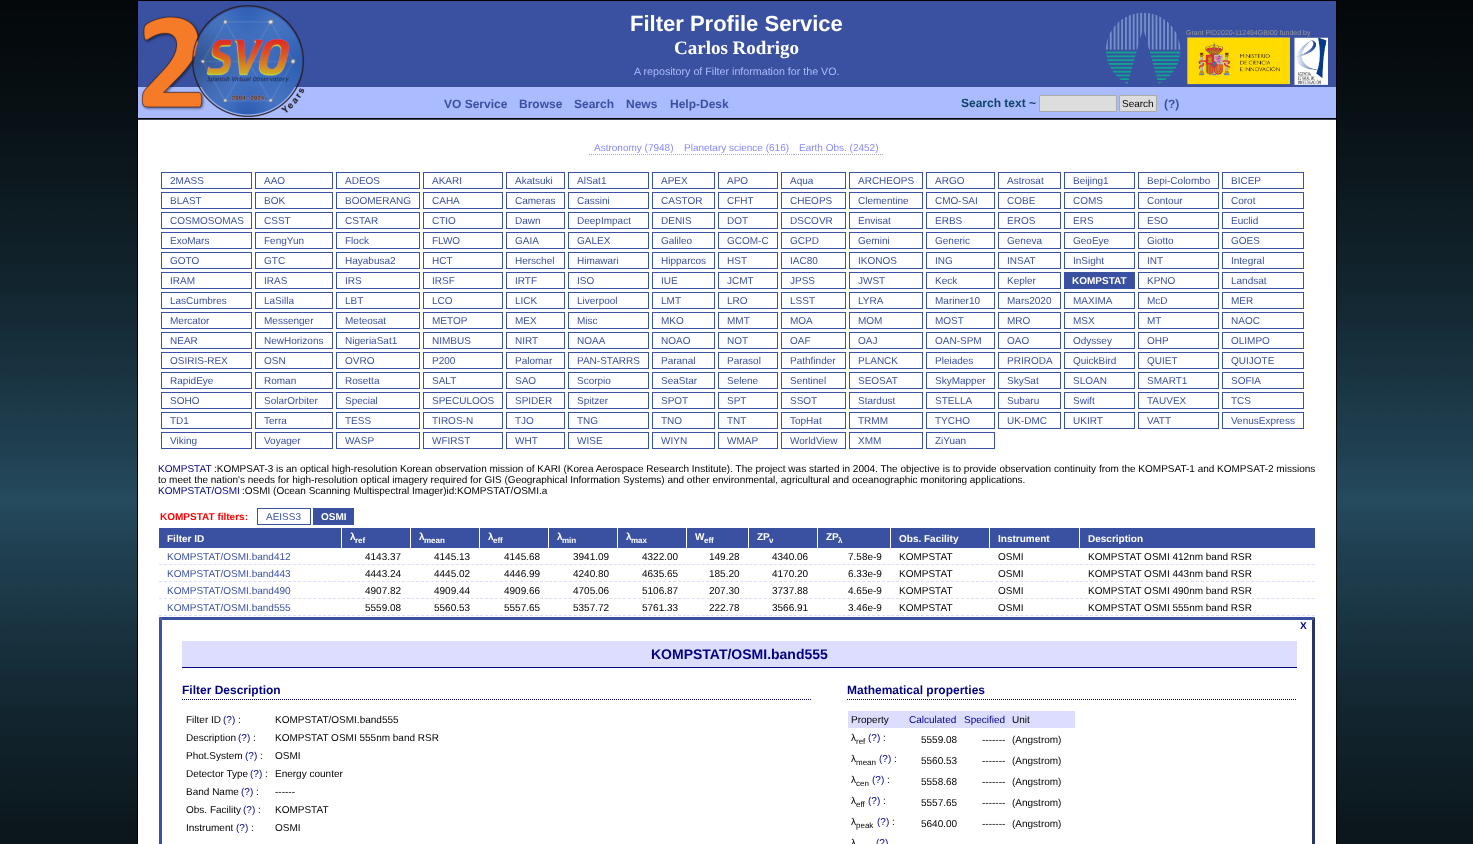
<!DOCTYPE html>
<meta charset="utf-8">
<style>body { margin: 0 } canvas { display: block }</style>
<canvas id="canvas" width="1473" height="844"></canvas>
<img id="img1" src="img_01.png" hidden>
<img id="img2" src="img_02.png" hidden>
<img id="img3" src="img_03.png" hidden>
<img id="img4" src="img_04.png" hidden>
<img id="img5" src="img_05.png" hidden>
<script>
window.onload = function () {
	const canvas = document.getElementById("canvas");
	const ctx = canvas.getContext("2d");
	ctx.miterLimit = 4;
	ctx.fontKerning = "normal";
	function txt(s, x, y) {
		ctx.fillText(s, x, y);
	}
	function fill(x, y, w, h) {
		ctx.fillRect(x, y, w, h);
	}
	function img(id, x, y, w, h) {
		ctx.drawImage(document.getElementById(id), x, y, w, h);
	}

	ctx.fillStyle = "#FFFFFF";
	fill(0, 0, 1473, 844);
	img("img1", 0, 0, 1473, 844);
	ctx.fillStyle = "#000000";
	fill(137, 0, 1200, 1);
	fill(137, 1, 1, 843);
	img("img2", 138, 1, 1198, 120);
	img("img3", 141, 4, 164, 114);
	img("img4", 1106, 12, 80, 72);
	img("img5", 1187, 37, 141, 48);
	ctx.fillStyle = "#DDDDDD";
	ctx.beginPath();
	ctx.rect(1039.5, 95.5, 77, 16);
	ctx.fill();
	ctx.strokeStyle = "#AAAAAA";
	ctx.stroke();
	ctx.beginPath();
	ctx.rect(1119.5, 95.5, 37, 16);
	ctx.fill();
	ctx.stroke();
	ctx.fillStyle = "#000000";
	fill(1336, 1, 1, 843);
	ctx.fillStyle = "#FFFFFF";
	fill(138, 121, 1198, 723);
	ctx.beginPath();
	ctx.moveTo(589, 154.5);
	ctx.lineTo(679, 154.5);
	ctx.setLineDash([1, 1]);
	ctx.stroke();
	ctx.beginPath();
	ctx.moveTo(679, 154.5);
	ctx.lineTo(794, 154.5);
	ctx.stroke();
	ctx.beginPath();
	ctx.moveTo(794, 154.5);
	ctx.lineTo(884, 154.5);
	ctx.stroke();
	ctx.strokeStyle = "#3A50A0";
	ctx.setLineDash([]);
	ctx.strokeRect(161.5, 172.5, 90, 16);
	ctx.strokeRect(255.5, 172.5, 77, 16);
	ctx.strokeRect(336.5, 172.5, 83, 16);
	ctx.strokeRect(423.5, 172.5, 79, 16);
	ctx.strokeRect(506.5, 172.5, 58, 16);
	ctx.strokeRect(568.5, 172.5, 80, 16);
	ctx.strokeRect(652.5, 172.5, 62, 16);
	ctx.strokeRect(718.5, 172.5, 59, 16);
	ctx.strokeRect(781.5, 172.5, 64, 16);
	ctx.strokeRect(849.5, 172.5, 73, 16);
	ctx.strokeRect(926.5, 172.5, 68, 16);
	ctx.strokeRect(998.5, 172.5, 62, 16);
	ctx.strokeRect(1064.5, 172.5, 70, 16);
	ctx.strokeRect(1138.5, 172.5, 80, 16);
	ctx.strokeRect(1222.5, 172.5, 81, 16);
	ctx.strokeRect(161.5, 192.5, 90, 16);
	ctx.strokeRect(255.5, 192.5, 77, 16);
	ctx.strokeRect(336.5, 192.5, 83, 16);
	ctx.strokeRect(423.5, 192.5, 79, 16);
	ctx.strokeRect(506.5, 192.5, 58, 16);
	ctx.strokeRect(568.5, 192.5, 80, 16);
	ctx.strokeRect(652.5, 192.5, 62, 16);
	ctx.strokeRect(718.5, 192.5, 59, 16);
	ctx.strokeRect(781.5, 192.5, 64, 16);
	ctx.strokeRect(849.5, 192.5, 73, 16);
	ctx.strokeRect(926.5, 192.5, 68, 16);
	ctx.strokeRect(998.5, 192.5, 62, 16);
	ctx.strokeRect(1064.5, 192.5, 70, 16);
	ctx.strokeRect(1138.5, 192.5, 80, 16);
	ctx.strokeRect(1222.5, 192.5, 81, 16);
	ctx.strokeRect(161.5, 212.5, 90, 16);
	ctx.strokeRect(255.5, 212.5, 77, 16);
	ctx.strokeRect(336.5, 212.5, 83, 16);
	ctx.strokeRect(423.5, 212.5, 79, 16);
	ctx.strokeRect(506.5, 212.5, 58, 16);
	ctx.strokeRect(568.5, 212.5, 80, 16);
	ctx.strokeRect(652.5, 212.5, 62, 16);
	ctx.strokeRect(718.5, 212.5, 59, 16);
	ctx.strokeRect(781.5, 212.5, 64, 16);
	ctx.strokeRect(849.5, 212.5, 73, 16);
	ctx.strokeRect(926.5, 212.5, 68, 16);
	ctx.strokeRect(998.5, 212.5, 62, 16);
	ctx.strokeRect(1064.5, 212.5, 70, 16);
	ctx.strokeRect(1138.5, 212.5, 80, 16);
	ctx.strokeRect(1222.5, 212.5, 81, 16);
	ctx.strokeRect(161.5, 232.5, 90, 16);
	ctx.strokeRect(255.5, 232.5, 77, 16);
	ctx.strokeRect(336.5, 232.5, 83, 16);
	ctx.strokeRect(423.5, 232.5, 79, 16);
	ctx.strokeRect(506.5, 232.5, 58, 16);
	ctx.strokeRect(568.5, 232.5, 80, 16);
	ctx.strokeRect(652.5, 232.5, 62, 16);
	ctx.strokeRect(718.5, 232.5, 59, 16);
	ctx.strokeRect(781.5, 232.5, 64, 16);
	ctx.strokeRect(849.5, 232.5, 73, 16);
	ctx.strokeRect(926.5, 232.5, 68, 16);
	ctx.strokeRect(998.5, 232.5, 62, 16);
	ctx.strokeRect(1064.5, 232.5, 70, 16);
	ctx.strokeRect(1138.5, 232.5, 80, 16);
	ctx.strokeRect(1222.5, 232.5, 81, 16);
	ctx.strokeRect(161.5, 252.5, 90, 16);
	ctx.strokeRect(255.5, 252.5, 77, 16);
	ctx.strokeRect(336.5, 252.5, 83, 16);
	ctx.strokeRect(423.5, 252.5, 79, 16);
	ctx.strokeRect(506.5, 252.5, 58, 16);
	ctx.strokeRect(568.5, 252.5, 80, 16);
	ctx.strokeRect(652.5, 252.5, 62, 16);
	ctx.strokeRect(718.5, 252.5, 59, 16);
	ctx.strokeRect(781.5, 252.5, 64, 16);
	ctx.strokeRect(849.5, 252.5, 73, 16);
	ctx.strokeRect(926.5, 252.5, 68, 16);
	ctx.strokeRect(998.5, 252.5, 62, 16);
	ctx.strokeRect(1064.5, 252.5, 70, 16);
	ctx.strokeRect(1138.5, 252.5, 80, 16);
	ctx.strokeRect(1222.5, 252.5, 81, 16);
	ctx.strokeRect(161.5, 272.5, 90, 16);
	ctx.strokeRect(255.5, 272.5, 77, 16);
	ctx.strokeRect(336.5, 272.5, 83, 16);
	ctx.strokeRect(423.5, 272.5, 79, 16);
	ctx.strokeRect(506.5, 272.5, 58, 16);
	ctx.strokeRect(568.5, 272.5, 80, 16);
	ctx.strokeRect(652.5, 272.5, 62, 16);
	ctx.strokeRect(718.5, 272.5, 59, 16);
	ctx.strokeRect(781.5, 272.5, 64, 16);
	ctx.strokeRect(849.5, 272.5, 73, 16);
	ctx.strokeRect(926.5, 272.5, 68, 16);
	ctx.strokeRect(998.5, 272.5, 62, 16);
	ctx.fillStyle = "#3A50A0";
	fill(1064, 272, 71, 17);
	ctx.strokeRect(1138.5, 272.5, 80, 16);
	ctx.strokeRect(1222.5, 272.5, 81, 16);
	ctx.strokeRect(161.5, 292.5, 90, 16);
	ctx.strokeRect(255.5, 292.5, 77, 16);
	ctx.strokeRect(336.5, 292.5, 83, 16);
	ctx.strokeRect(423.5, 292.5, 79, 16);
	ctx.strokeRect(506.5, 292.5, 58, 16);
	ctx.strokeRect(568.5, 292.5, 80, 16);
	ctx.strokeRect(652.5, 292.5, 62, 16);
	ctx.strokeRect(718.5, 292.5, 59, 16);
	ctx.strokeRect(781.5, 292.5, 64, 16);
	ctx.strokeRect(849.5, 292.5, 73, 16);
	ctx.strokeRect(926.5, 292.5, 68, 16);
	ctx.strokeRect(998.5, 292.5, 62, 16);
	ctx.strokeRect(1064.5, 292.5, 70, 16);
	ctx.strokeRect(1138.5, 292.5, 80, 16);
	ctx.strokeRect(1222.5, 292.5, 81, 16);
	ctx.strokeRect(161.5, 312.5, 90, 16);
	ctx.strokeRect(255.5, 312.5, 77, 16);
	ctx.strokeRect(336.5, 312.5, 83, 16);
	ctx.strokeRect(423.5, 312.5, 79, 16);
	ctx.strokeRect(506.5, 312.5, 58, 16);
	ctx.strokeRect(568.5, 312.5, 80, 16);
	ctx.strokeRect(652.5, 312.5, 62, 16);
	ctx.strokeRect(718.5, 312.5, 59, 16);
	ctx.strokeRect(781.5, 312.5, 64, 16);
	ctx.strokeRect(849.5, 312.5, 73, 16);
	ctx.strokeRect(926.5, 312.5, 68, 16);
	ctx.strokeRect(998.5, 312.5, 62, 16);
	ctx.strokeRect(1064.5, 312.5, 70, 16);
	ctx.strokeRect(1138.5, 312.5, 80, 16);
	ctx.strokeRect(1222.5, 312.5, 81, 16);
	ctx.strokeRect(161.5, 332.5, 90, 16);
	ctx.strokeRect(255.5, 332.5, 77, 16);
	ctx.strokeRect(336.5, 332.5, 83, 16);
	ctx.strokeRect(423.5, 332.5, 79, 16);
	ctx.strokeRect(506.5, 332.5, 58, 16);
	ctx.strokeRect(568.5, 332.5, 80, 16);
	ctx.strokeRect(652.5, 332.5, 62, 16);
	ctx.strokeRect(718.5, 332.5, 59, 16);
	ctx.strokeRect(781.5, 332.5, 64, 16);
	ctx.strokeRect(849.5, 332.5, 73, 16);
	ctx.strokeRect(926.5, 332.5, 68, 16);
	ctx.strokeRect(998.5, 332.5, 62, 16);
	ctx.strokeRect(1064.5, 332.5, 70, 16);
	ctx.strokeRect(1138.5, 332.5, 80, 16);
	ctx.strokeRect(1222.5, 332.5, 81, 16);
	ctx.strokeRect(161.5, 352.5, 90, 16);
	ctx.strokeRect(255.5, 352.5, 77, 16);
	ctx.strokeRect(336.5, 352.5, 83, 16);
	ctx.strokeRect(423.5, 352.5, 79, 16);
	ctx.strokeRect(506.5, 352.5, 58, 16);
	ctx.strokeRect(568.5, 352.5, 80, 16);
	ctx.strokeRect(652.5, 352.5, 62, 16);
	ctx.strokeRect(718.5, 352.5, 59, 16);
	ctx.strokeRect(781.5, 352.5, 64, 16);
	ctx.strokeRect(849.5, 352.5, 73, 16);
	ctx.strokeRect(926.5, 352.5, 68, 16);
	ctx.strokeRect(998.5, 352.5, 62, 16);
	ctx.strokeRect(1064.5, 352.5, 70, 16);
	ctx.strokeRect(1138.5, 352.5, 80, 16);
	ctx.strokeRect(1222.5, 352.5, 81, 16);
	ctx.strokeRect(161.5, 372.5, 90, 16);
	ctx.strokeRect(255.5, 372.5, 77, 16);
	ctx.strokeRect(336.5, 372.5, 83, 16);
	ctx.strokeRect(423.5, 372.5, 79, 16);
	ctx.strokeRect(506.5, 372.5, 58, 16);
	ctx.strokeRect(568.5, 372.5, 80, 16);
	ctx.strokeRect(652.5, 372.5, 62, 16);
	ctx.strokeRect(718.5, 372.5, 59, 16);
	ctx.strokeRect(781.5, 372.5, 64, 16);
	ctx.strokeRect(849.5, 372.5, 73, 16);
	ctx.strokeRect(926.5, 372.5, 68, 16);
	ctx.strokeRect(998.5, 372.5, 62, 16);
	ctx.strokeRect(1064.5, 372.5, 70, 16);
	ctx.strokeRect(1138.5, 372.5, 80, 16);
	ctx.strokeRect(1222.5, 372.5, 81, 16);
	ctx.strokeRect(161.5, 392.5, 90, 16);
	ctx.strokeRect(255.5, 392.5, 77, 16);
	ctx.strokeRect(336.5, 392.5, 83, 16);
	ctx.strokeRect(423.5, 392.5, 79, 16);
	ctx.strokeRect(506.5, 392.5, 58, 16);
	ctx.strokeRect(568.5, 392.5, 80, 16);
	ctx.strokeRect(652.5, 392.5, 62, 16);
	ctx.strokeRect(718.5, 392.5, 59, 16);
	ctx.strokeRect(781.5, 392.5, 64, 16);
	ctx.strokeRect(849.5, 392.5, 73, 16);
	ctx.strokeRect(926.5, 392.5, 68, 16);
	ctx.strokeRect(998.5, 392.5, 62, 16);
	ctx.strokeRect(1064.5, 392.5, 70, 16);
	ctx.strokeRect(1138.5, 392.5, 80, 16);
	ctx.strokeRect(1222.5, 392.5, 81, 16);
	ctx.strokeRect(161.5, 412.5, 90, 16);
	ctx.strokeRect(255.5, 412.5, 77, 16);
	ctx.strokeRect(336.5, 412.5, 83, 16);
	ctx.strokeRect(423.5, 412.5, 79, 16);
	ctx.strokeRect(506.5, 412.5, 58, 16);
	ctx.strokeRect(568.5, 412.5, 80, 16);
	ctx.strokeRect(652.5, 412.5, 62, 16);
	ctx.strokeRect(718.5, 412.5, 59, 16);
	ctx.strokeRect(781.5, 412.5, 64, 16);
	ctx.strokeRect(849.5, 412.5, 73, 16);
	ctx.strokeRect(926.5, 412.5, 68, 16);
	ctx.strokeRect(998.5, 412.5, 62, 16);
	ctx.strokeRect(1064.5, 412.5, 70, 16);
	ctx.strokeRect(1138.5, 412.5, 80, 16);
	ctx.strokeRect(1222.5, 412.5, 81, 16);
	ctx.strokeRect(161.5, 432.5, 90, 16);
	ctx.strokeRect(255.5, 432.5, 77, 16);
	ctx.strokeRect(336.5, 432.5, 83, 16);
	ctx.strokeRect(423.5, 432.5, 79, 16);
	ctx.strokeRect(506.5, 432.5, 58, 16);
	ctx.strokeRect(568.5, 432.5, 80, 16);
	ctx.strokeRect(652.5, 432.5, 62, 16);
	ctx.strokeRect(718.5, 432.5, 59, 16);
	ctx.strokeRect(781.5, 432.5, 64, 16);
	ctx.strokeRect(849.5, 432.5, 73, 16);
	ctx.strokeRect(926.5, 432.5, 68, 16);
	ctx.strokeRect(257.5, 508.5, 53, 16);
	fill(313, 508, 41, 17);
	fill(159, 528, 182, 20);
	fill(342, 528, 68, 20);
	fill(411, 528, 68, 20);
	fill(480, 528, 68, 20);
	fill(549, 528, 68, 20);
	fill(618, 528, 68, 20);
	fill(687, 528, 61, 20);
	fill(749, 528, 68, 20);
	fill(818, 528, 72, 20);
	fill(891, 528, 98, 20);
	fill(990, 528, 89, 20);
	fill(1080, 528, 235, 20);
	ctx.beginPath();
	ctx.moveTo(159, 564.5);
	ctx.lineTo(341, 564.5);
	ctx.strokeStyle = "#DDDDFF";
	ctx.setLineDash([3, 1.97]);
	ctx.stroke();
	ctx.beginPath();
	ctx.moveTo(342, 564.5);
	ctx.lineTo(410, 564.5);
	ctx.setLineDash([3, 2]);
	ctx.stroke();
	ctx.beginPath();
	ctx.moveTo(411, 564.5);
	ctx.lineTo(479, 564.5);
	ctx.stroke();
	ctx.beginPath();
	ctx.moveTo(480, 564.5);
	ctx.lineTo(548, 564.5);
	ctx.stroke();
	ctx.beginPath();
	ctx.moveTo(549, 564.5);
	ctx.lineTo(617, 564.5);
	ctx.stroke();
	ctx.beginPath();
	ctx.moveTo(618, 564.5);
	ctx.lineTo(686, 564.5);
	ctx.stroke();
	ctx.beginPath();
	ctx.moveTo(687, 564.5);
	ctx.lineTo(748, 564.5);
	ctx.setLineDash([3, 1.83]);
	ctx.stroke();
	ctx.beginPath();
	ctx.moveTo(749, 564.5);
	ctx.lineTo(817, 564.5);
	ctx.setLineDash([3, 2]);
	ctx.stroke();
	ctx.beginPath();
	ctx.moveTo(818, 564.5);
	ctx.lineTo(890, 564.5);
	ctx.setLineDash([3, 1.93]);
	ctx.stroke();
	ctx.beginPath();
	ctx.moveTo(891, 564.5);
	ctx.lineTo(989, 564.5);
	ctx.setLineDash([3, 2]);
	ctx.stroke();
	ctx.beginPath();
	ctx.moveTo(990, 564.5);
	ctx.lineTo(1079, 564.5);
	ctx.setLineDash([3, 2.06]);
	ctx.stroke();
	ctx.beginPath();
	ctx.moveTo(1080, 564.5);
	ctx.lineTo(1315, 564.5);
	ctx.setLineDash([3, 2.04]);
	ctx.stroke();
	ctx.beginPath();
	ctx.moveTo(159, 581.5);
	ctx.lineTo(341, 581.5);
	ctx.setLineDash([3, 1.97]);
	ctx.stroke();
	ctx.beginPath();
	ctx.moveTo(342, 581.5);
	ctx.lineTo(410, 581.5);
	ctx.setLineDash([3, 2]);
	ctx.stroke();
	ctx.beginPath();
	ctx.moveTo(411, 581.5);
	ctx.lineTo(479, 581.5);
	ctx.stroke();
	ctx.beginPath();
	ctx.moveTo(480, 581.5);
	ctx.lineTo(548, 581.5);
	ctx.stroke();
	ctx.beginPath();
	ctx.moveTo(549, 581.5);
	ctx.lineTo(617, 581.5);
	ctx.stroke();
	ctx.beginPath();
	ctx.moveTo(618, 581.5);
	ctx.lineTo(686, 581.5);
	ctx.stroke();
	ctx.beginPath();
	ctx.moveTo(687, 581.5);
	ctx.lineTo(748, 581.5);
	ctx.setLineDash([3, 1.83]);
	ctx.stroke();
	ctx.beginPath();
	ctx.moveTo(749, 581.5);
	ctx.lineTo(817, 581.5);
	ctx.setLineDash([3, 2]);
	ctx.stroke();
	ctx.beginPath();
	ctx.moveTo(818, 581.5);
	ctx.lineTo(890, 581.5);
	ctx.setLineDash([3, 1.93]);
	ctx.stroke();
	ctx.beginPath();
	ctx.moveTo(891, 581.5);
	ctx.lineTo(989, 581.5);
	ctx.setLineDash([3, 2]);
	ctx.stroke();
	ctx.beginPath();
	ctx.moveTo(990, 581.5);
	ctx.lineTo(1079, 581.5);
	ctx.setLineDash([3, 2.06]);
	ctx.stroke();
	ctx.beginPath();
	ctx.moveTo(1080, 581.5);
	ctx.lineTo(1315, 581.5);
	ctx.setLineDash([3, 2.04]);
	ctx.stroke();
	ctx.beginPath();
	ctx.moveTo(159, 598.5);
	ctx.lineTo(341, 598.5);
	ctx.setLineDash([3, 1.97]);
	ctx.stroke();
	ctx.beginPath();
	ctx.moveTo(342, 598.5);
	ctx.lineTo(410, 598.5);
	ctx.setLineDash([3, 2]);
	ctx.stroke();
	ctx.beginPath();
	ctx.moveTo(411, 598.5);
	ctx.lineTo(479, 598.5);
	ctx.stroke();
	ctx.beginPath();
	ctx.moveTo(480, 598.5);
	ctx.lineTo(548, 598.5);
	ctx.stroke();
	ctx.beginPath();
	ctx.moveTo(549, 598.5);
	ctx.lineTo(617, 598.5);
	ctx.stroke();
	ctx.beginPath();
	ctx.moveTo(618, 598.5);
	ctx.lineTo(686, 598.5);
	ctx.stroke();
	ctx.beginPath();
	ctx.moveTo(687, 598.5);
	ctx.lineTo(748, 598.5);
	ctx.setLineDash([3, 1.83]);
	ctx.stroke();
	ctx.beginPath();
	ctx.moveTo(749, 598.5);
	ctx.lineTo(817, 598.5);
	ctx.setLineDash([3, 2]);
	ctx.stroke();
	ctx.beginPath();
	ctx.moveTo(818, 598.5);
	ctx.lineTo(890, 598.5);
	ctx.setLineDash([3, 1.93]);
	ctx.stroke();
	ctx.beginPath();
	ctx.moveTo(891, 598.5);
	ctx.lineTo(989, 598.5);
	ctx.setLineDash([3, 2]);
	ctx.stroke();
	ctx.beginPath();
	ctx.moveTo(990, 598.5);
	ctx.lineTo(1079, 598.5);
	ctx.setLineDash([3, 2.06]);
	ctx.stroke();
	ctx.beginPath();
	ctx.moveTo(1080, 598.5);
	ctx.lineTo(1315, 598.5);
	ctx.setLineDash([3, 2.04]);
	ctx.stroke();
	ctx.beginPath();
	ctx.moveTo(159, 615.5);
	ctx.lineTo(341, 615.5);
	ctx.setLineDash([3, 1.97]);
	ctx.stroke();
	ctx.beginPath();
	ctx.moveTo(342, 615.5);
	ctx.lineTo(410, 615.5);
	ctx.setLineDash([3, 2]);
	ctx.stroke();
	ctx.beginPath();
	ctx.moveTo(411, 615.5);
	ctx.lineTo(479, 615.5);
	ctx.stroke();
	ctx.beginPath();
	ctx.moveTo(480, 615.5);
	ctx.lineTo(548, 615.5);
	ctx.stroke();
	ctx.beginPath();
	ctx.moveTo(549, 615.5);
	ctx.lineTo(617, 615.5);
	ctx.stroke();
	ctx.beginPath();
	ctx.moveTo(618, 615.5);
	ctx.lineTo(686, 615.5);
	ctx.stroke();
	ctx.beginPath();
	ctx.moveTo(687, 615.5);
	ctx.lineTo(748, 615.5);
	ctx.setLineDash([3, 1.83]);
	ctx.stroke();
	ctx.beginPath();
	ctx.moveTo(749, 615.5);
	ctx.lineTo(817, 615.5);
	ctx.setLineDash([3, 2]);
	ctx.stroke();
	ctx.beginPath();
	ctx.moveTo(818, 615.5);
	ctx.lineTo(890, 615.5);
	ctx.setLineDash([3, 1.93]);
	ctx.stroke();
	ctx.beginPath();
	ctx.moveTo(891, 615.5);
	ctx.lineTo(989, 615.5);
	ctx.setLineDash([3, 2]);
	ctx.stroke();
	ctx.beginPath();
	ctx.moveTo(990, 615.5);
	ctx.lineTo(1079, 615.5);
	ctx.setLineDash([3, 2.06]);
	ctx.stroke();
	ctx.beginPath();
	ctx.moveTo(1080, 615.5);
	ctx.lineTo(1315, 615.5);
	ctx.setLineDash([3, 2.04]);
	ctx.stroke();
	ctx.beginPath();
	ctx.moveTo(159, 617);
	ctx.lineTo(1315, 617);
	ctx.lineTo(1312, 620);
	ctx.lineTo(162, 620);
	ctx.closePath();
	ctx.fill();
	ctx.fillStyle = "#27356B";
	ctx.beginPath();
	ctx.moveTo(1315, 617);
	ctx.lineTo(1315, 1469);
	ctx.lineTo(1312, 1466);
	ctx.lineTo(1312, 620);
	ctx.closePath();
	ctx.fill();
	ctx.fillStyle = "#3A50A0";
	ctx.beginPath();
	ctx.moveTo(159, 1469);
	ctx.lineTo(159, 617);
	ctx.lineTo(162, 620);
	ctx.lineTo(162, 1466);
	ctx.closePath();
	ctx.fill();
	ctx.fillStyle = "#DDDDFF";
	fill(182, 641, 1115, 26);
	ctx.fillStyle = "#000080";
	fill(182, 667, 1115, 1);
	ctx.beginPath();
	ctx.moveTo(182, 699.5);
	ctx.lineTo(812, 699.5);
	ctx.strokeStyle = "#000080";
	ctx.setLineDash([1, 1]);
	ctx.stroke();
	ctx.beginPath();
	ctx.moveTo(847, 699.5);
	ctx.lineTo(1297, 699.5);
	ctx.stroke();
	ctx.fillStyle = "#DDDDFF";
	fill(848, 711, 227, 17);
	ctx.font = "bold 22px Liberation Sans";
	ctx.fillStyle = "#FFFFFF";
	txt("Filter Profile Service", 630, 31);
	ctx.font = "bold 19px Liberation Serif";
	txt("Carlos Rodrigo", 674, 54);
	ctx.font = "10.7px Liberation Sans";
	ctx.fillStyle = "#AABBFF";
	txt("A repository of Filter information for the VO.", 634, 75);
	ctx.font = "7px Liberation Sans";
	ctx.fillStyle = "#999999";
	txt("Grant PID2020-112494GBI00 funded by", 1186, 35);
	ctx.font = "bold 12px Liberation Sans";
	ctx.fillStyle = "#3A50A0";
	txt("VO Service", 444, 108);
	txt("Browse", 519, 108);
	txt("Search", 574, 108);
	txt("News", 626, 108);
	txt("Help-Desk", 670, 108);
	ctx.fillStyle = "#114466";
	txt("Search text ~", 961, 107);
	ctx.font = "10px Liberation Sans";
	ctx.fillStyle = "#000000";
	txt("Search", 1122, 107);
	ctx.font = "bold 12px Liberation Sans";
	ctx.fillStyle = "#3A50A0";
	txt("(?)", 1164, 108);
	ctx.font = "10px Liberation Sans";
	ctx.fillStyle = "#8888FF";
	txt("Astronomy (7948)", 594, 151);
	txt("Planetary science (616)", 684, 151);
	txt("Earth Obs. (2452)", 799, 151);
	ctx.fillStyle = "#3A50A0";
	txt("2MASS", 170, 184);
	txt("AAO", 264, 184);
	txt("ADEOS", 345, 184);
	txt("AKARI", 432, 184);
	txt("Akatsuki", 515, 184);
	txt("AlSat1", 577, 184);
	txt("APEX", 661, 184);
	txt("APO", 727, 184);
	txt("Aqua", 790, 184);
	txt("ARCHEOPS", 858, 184);
	txt("ARGO", 935, 184);
	txt("Astrosat", 1007, 184);
	txt("Beijing1", 1073, 184);
	txt("Bepi-Colombo", 1147, 184);
	txt("BICEP", 1231, 184);
	txt("BLAST", 170, 204);
	txt("BOK", 264, 204);
	txt("BOOMERANG", 345, 204);
	txt("CAHA", 432, 204);
	txt("Cameras", 515, 204);
	txt("Cassini", 577, 204);
	txt("CASTOR", 661, 204);
	txt("CFHT", 727, 204);
	txt("CHEOPS", 790, 204);
	txt("Clementine", 858, 204);
	txt("CMO-SAI", 935, 204);
	txt("COBE", 1007, 204);
	txt("COMS", 1073, 204);
	txt("Contour", 1147, 204);
	txt("Corot", 1231, 204);
	txt("COSMOSOMAS", 170, 224);
	txt("CSST", 264, 224);
	txt("CSTAR", 345, 224);
	txt("CTIO", 432, 224);
	txt("Dawn", 515, 224);
	txt("DeepImpact", 577, 224);
	txt("DENIS", 661, 224);
	txt("DOT", 727, 224);
	txt("DSCOVR", 790, 224);
	txt("Envisat", 858, 224);
	txt("ERBS", 935, 224);
	txt("EROS", 1007, 224);
	txt("ERS", 1073, 224);
	txt("ESO", 1147, 224);
	txt("Euclid", 1231, 224);
	txt("ExoMars", 170, 244);
	txt("FengYun", 264, 244);
	txt("Flock", 345, 244);
	txt("FLWO", 432, 244);
	txt("GAIA", 515, 244);
	txt("GALEX", 577, 244);
	txt("Galileo", 661, 244);
	txt("GCOM-C", 727, 244);
	txt("GCPD", 790, 244);
	txt("Gemini", 858, 244);
	txt("Generic", 935, 244);
	txt("Geneva", 1007, 244);
	txt("GeoEye", 1073, 244);
	txt("Giotto", 1147, 244);
	txt("GOES", 1231, 244);
	txt("GOTO", 170, 264);
	txt("GTC", 264, 264);
	txt("Hayabusa2", 345, 264);
	txt("HCT", 432, 264);
	txt("Herschel", 515, 264);
	txt("Himawari", 577, 264);
	txt("Hipparcos", 661, 264);
	txt("HST", 727, 264);
	txt("IAC80", 790, 264);
	txt("IKONOS", 858, 264);
	txt("ING", 935, 264);
	txt("INSAT", 1007, 264);
	txt("InSight", 1073, 264);
	txt("INT", 1147, 264);
	txt("Integral", 1231, 264);
	txt("IRAM", 170, 284);
	txt("IRAS", 264, 284);
	txt("IRS", 345, 284);
	txt("IRSF", 432, 284);
	txt("IRTF", 515, 284);
	txt("ISO", 577, 284);
	txt("IUE", 661, 284);
	txt("JCMT", 727, 284);
	txt("JPSS", 790, 284);
	txt("JWST", 858, 284);
	txt("Keck", 935, 284);
	txt("Kepler", 1007, 284);
	ctx.font = "bold 10px Liberation Sans";
	ctx.fillStyle = "#FFFFFF";
	txt("KOMPSTAT", 1072, 284);
	ctx.font = "10px Liberation Sans";
	ctx.fillStyle = "#3A50A0";
	txt("KPNO", 1147, 284);
	txt("Landsat", 1231, 284);
	txt("LasCumbres", 170, 304);
	txt("LaSilla", 264, 304);
	txt("LBT", 345, 304);
	txt("LCO", 432, 304);
	txt("LICK", 515, 304);
	txt("Liverpool", 577, 304);
	txt("LMT", 661, 304);
	txt("LRO", 727, 304);
	txt("LSST", 790, 304);
	txt("LYRA", 858, 304);
	txt("Mariner10", 935, 304);
	txt("Mars2020", 1007, 304);
	txt("MAXIMA", 1073, 304);
	txt("McD", 1147, 304);
	txt("MER", 1231, 304);
	txt("Mercator", 170, 324);
	txt("Messenger", 264, 324);
	txt("Meteosat", 345, 324);
	txt("METOP", 432, 324);
	txt("MEX", 515, 324);
	txt("Misc", 577, 324);
	txt("MKO", 661, 324);
	txt("MMT", 727, 324);
	txt("MOA", 790, 324);
	txt("MOM", 858, 324);
	txt("MOST", 935, 324);
	txt("MRO", 1007, 324);
	txt("MSX", 1073, 324);
	txt("MT", 1147, 324);
	txt("NAOC", 1231, 324);
	txt("NEAR", 170, 344);
	txt("NewHorizons", 264, 344);
	txt("NigeriaSat1", 345, 344);
	txt("NIMBUS", 432, 344);
	txt("NIRT", 515, 344);
	txt("NOAA", 577, 344);
	txt("NOAO", 661, 344);
	txt("NOT", 727, 344);
	txt("OAF", 790, 344);
	txt("OAJ", 858, 344);
	txt("OAN-SPM", 935, 344);
	txt("OAO", 1007, 344);
	txt("Odyssey", 1073, 344);
	txt("OHP", 1147, 344);
	txt("OLIMPO", 1231, 344);
	txt("OSIRIS-REX", 170, 364);
	txt("OSN", 264, 364);
	txt("OVRO", 345, 364);
	txt("P200", 432, 364);
	txt("Palomar", 515, 364);
	txt("PAN-STARRS", 577, 364);
	txt("Paranal", 661, 364);
	txt("Parasol", 727, 364);
	txt("Pathfinder", 790, 364);
	txt("PLANCK", 858, 364);
	txt("Pleiades", 935, 364);
	txt("PRIRODA", 1007, 364);
	txt("QuickBird", 1073, 364);
	txt("QUIET", 1147, 364);
	txt("QUIJOTE", 1231, 364);
	txt("RapidEye", 170, 384);
	txt("Roman", 264, 384);
	txt("Rosetta", 345, 384);
	txt("SALT", 432, 384);
	txt("SAO", 515, 384);
	txt("Scorpio", 577, 384);
	txt("SeaStar", 661, 384);
	txt("Selene", 727, 384);
	txt("Sentinel", 790, 384);
	txt("SEOSAT", 858, 384);
	txt("SkyMapper", 935, 384);
	txt("SkySat", 1007, 384);
	txt("SLOAN", 1073, 384);
	txt("SMART1", 1147, 384);
	txt("SOFIA", 1231, 384);
	txt("SOHO", 170, 404);
	txt("SolarOrbiter", 264, 404);
	txt("Special", 345, 404);
	txt("SPECULOOS", 432, 404);
	txt("SPIDER", 515, 404);
	txt("Spitzer", 577, 404);
	txt("SPOT", 661, 404);
	txt("SPT", 727, 404);
	txt("SSOT", 790, 404);
	txt("Stardust", 858, 404);
	txt("STELLA", 935, 404);
	txt("Subaru", 1007, 404);
	txt("Swift", 1073, 404);
	txt("TAUVEX", 1147, 404);
	txt("TCS", 1231, 404);
	txt("TD1", 170, 424);
	txt("Terra", 264, 424);
	txt("TESS", 345, 424);
	txt("TIROS-N", 432, 424);
	txt("TJO", 515, 424);
	txt("TNG", 577, 424);
	txt("TNO", 661, 424);
	txt("TNT", 727, 424);
	txt("TopHat", 790, 424);
	txt("TRMM", 858, 424);
	txt("TYCHO", 935, 424);
	txt("UK-DMC", 1007, 424);
	txt("UKIRT", 1073, 424);
	txt("VATT", 1147, 424);
	txt("VenusExpress", 1231, 424);
	txt("Viking", 170, 444);
	txt("Voyager", 264, 444);
	txt("WASP", 345, 444);
	txt("WFIRST", 432, 444);
	txt("WHT", 515, 444);
	txt("WISE", 577, 444);
	txt("WIYN", 661, 444);
	txt("WMAP", 727, 444);
	txt("WorldView", 790, 444);
	txt("XMM", 858, 444);
	txt("ZiYuan", 935, 444);
	ctx.fillStyle = "#000088";
	txt("KOMPSTAT", 158, 472);
	ctx.fillStyle = "#000000";
	txt(":KOMPSAT-3 is an optical high-resolution Korean observation mission of KARI (Korea Aerospace Research Institute). The project was started in 2004. The objective is to provide observation continuity from the KOMPSAT-1 and KOMPSAT-2 missions", 214, 472);
	txt("to meet the nation's needs for high-resolution optical imagery required for GIS (Geographical Information Systems) and other environmental, agricultural and oceanographic monitoring applications.", 158, 483);
	ctx.fillStyle = "#000088";
	txt("KOMPSTAT/OSMI", 158, 494);
	ctx.fillStyle = "#000000";
	txt(":OSMI (Ocean Scanning Multispectral Imager)id:KOMPSTAT/OSMI.a", 242, 494);
	ctx.font = "bold 10px Liberation Sans";
	ctx.fillStyle = "#FF0000";
	txt("KOMPSTAT filters:", 160, 520);
	ctx.font = "10px Liberation Sans";
	ctx.fillStyle = "#3A50A0";
	txt("AEISS3", 266, 520);
	ctx.font = "bold 10px Liberation Sans";
	ctx.fillStyle = "#FFFFFF";
	txt("OSMI", 321, 520);
	txt("Filter ID", 167, 542);
	txt("λ", 350, 540);
	ctx.font = "bold 8px Liberation Sans";
	txt("ref", 355, 543);
	ctx.font = "bold 10px Liberation Sans";
	txt("λ", 419, 540);
	ctx.font = "bold 8px Liberation Sans";
	txt("mean", 424, 543);
	ctx.font = "bold 10px Liberation Sans";
	txt("λ", 488, 540);
	ctx.font = "bold 8px Liberation Sans";
	txt("eff", 493, 543);
	ctx.font = "bold 10px Liberation Sans";
	txt("λ", 557, 540);
	ctx.font = "bold 8px Liberation Sans";
	txt("min", 562, 543);
	ctx.font = "bold 10px Liberation Sans";
	txt("λ", 626, 540);
	ctx.font = "bold 8px Liberation Sans";
	txt("max", 631, 543);
	ctx.font = "bold 10px Liberation Sans";
	txt("W", 695, 540);
	ctx.font = "bold 8px Liberation Sans";
	txt("eff", 704, 543);
	ctx.font = "bold 10px Liberation Sans";
	txt("ZP", 757, 540);
	ctx.font = "bold 8px Liberation Sans";
	txt("ν", 769, 543);
	ctx.font = "bold 10px Liberation Sans";
	txt("ZP", 826, 540);
	ctx.font = "bold 8px Liberation Sans";
	txt("λ", 838, 543);
	ctx.font = "bold 10px Liberation Sans";
	txt("Obs. Facility", 899, 542);
	txt("Instrument", 998, 542);
	txt("Description", 1088, 542);
	ctx.font = "10px Liberation Sans";
	ctx.fillStyle = "#3A50A0";
	txt("KOMPSTAT/OSMI.band412", 167, 560);
	ctx.fillStyle = "#000000";
	txt("4143.37", 365, 560);
	txt("4145.13", 434, 560);
	txt("4145.68", 504, 560);
	txt("3941.09", 573, 560);
	txt("4322.00", 642, 560);
	txt("149.28", 709, 560);
	txt("4340.06", 772, 560);
	txt("7.58e-9", 848, 560);
	txt("KOMPSTAT", 899, 560);
	txt("OSMI", 998, 560);
	txt("KOMPSTAT OSMI 412nm band RSR", 1088, 560);
	ctx.fillStyle = "#3A50A0";
	txt("KOMPSTAT/OSMI.band443", 167, 577);
	ctx.fillStyle = "#000000";
	txt("4443.24", 365, 577);
	txt("4445.02", 434, 577);
	txt("4446.99", 504, 577);
	txt("4240.80", 573, 577);
	txt("4635.65", 642, 577);
	txt("185.20", 709, 577);
	txt("4170.20", 772, 577);
	txt("6.33e-9", 848, 577);
	txt("KOMPSTAT", 899, 577);
	txt("OSMI", 998, 577);
	txt("KOMPSTAT OSMI 443nm band RSR", 1088, 577);
	ctx.fillStyle = "#3A50A0";
	txt("KOMPSTAT/OSMI.band490", 167, 594);
	ctx.fillStyle = "#000000";
	txt("4907.82", 365, 594);
	txt("4909.44", 434, 594);
	txt("4909.66", 504, 594);
	txt("4705.06", 573, 594);
	txt("5106.87", 642, 594);
	txt("207.30", 709, 594);
	txt("3737.88", 772, 594);
	txt("4.65e-9", 848, 594);
	txt("KOMPSTAT", 899, 594);
	txt("OSMI", 998, 594);
	txt("KOMPSTAT OSMI 490nm band RSR", 1088, 594);
	ctx.fillStyle = "#3A50A0";
	txt("KOMPSTAT/OSMI.band555", 167, 611);
	ctx.fillStyle = "#000000";
	txt("5559.08", 365, 611);
	txt("5560.53", 434, 611);
	txt("5557.65", 504, 611);
	txt("5357.72", 573, 611);
	txt("5761.33", 642, 611);
	txt("222.78", 709, 611);
	txt("3566.91", 772, 611);
	txt("3.46e-9", 848, 611);
	txt("KOMPSTAT", 899, 611);
	txt("OSMI", 998, 611);
	txt("KOMPSTAT OSMI 555nm band RSR", 1088, 611);
	ctx.font = "bold 10px Liberation Sans";
	ctx.fillStyle = "#000088";
	txt("X", 1300, 629);
	ctx.font = "bold 14px Liberation Sans";
	ctx.fillStyle = "#000080";
	txt("KOMPSTAT/OSMI.band555", 651, 659);
	ctx.font = "bold 12px Liberation Sans";
	txt("Filter Description", 182, 694);
	ctx.font = "10px Liberation Sans";
	ctx.fillStyle = "#000000";
	txt("Filter ID", 186, 723);
	ctx.fillStyle = "#000088";
	txt("(?)", 223, 723);
	ctx.fillStyle = "#000000";
	txt(":", 238, 723);
	txt("KOMPSTAT/OSMI.band555", 275, 723);
	txt("Description", 186, 741);
	ctx.fillStyle = "#000088";
	txt("(?)", 238, 741);
	ctx.fillStyle = "#000000";
	txt(":", 253, 741);
	txt("KOMPSTAT OSMI 555nm band RSR", 275, 741);
	txt("Phot.System", 186, 759);
	ctx.fillStyle = "#000088";
	txt("(?)", 245, 759);
	ctx.fillStyle = "#000000";
	txt(":", 260, 759);
	txt("OSMI", 275, 759);
	txt("Detector Type", 186, 777);
	ctx.fillStyle = "#000088";
	txt("(?)", 250, 777);
	ctx.fillStyle = "#000000";
	txt(":", 265, 777);
	txt("Energy counter", 275, 777);
	txt("Band Name", 186, 795);
	ctx.fillStyle = "#000088";
	txt("(?)", 241, 795);
	ctx.fillStyle = "#000000";
	txt(":", 256, 795);
	txt("------", 275, 795);
	txt("Obs. Facility", 186, 813);
	ctx.fillStyle = "#000088";
	txt("(?)", 243, 813);
	ctx.fillStyle = "#000000";
	txt(":", 258, 813);
	txt("KOMPSTAT", 275, 813);
	txt("Instrument", 186, 831);
	ctx.fillStyle = "#000088";
	txt("(?)", 236, 831);
	ctx.fillStyle = "#000000";
	txt(":", 251, 831);
	txt("OSMI", 275, 831);
	ctx.font = "bold 12px Liberation Sans";
	ctx.fillStyle = "#000080";
	txt("Mathematical properties", 847, 694);
	ctx.font = "10px Liberation Sans";
	ctx.fillStyle = "#000000";
	txt("Property", 851, 723);
	ctx.fillStyle = "#000088";
	txt("Calculated", 909, 723);
	txt("Specified", 964, 723);
	ctx.fillStyle = "#000000";
	txt("Unit", 1012, 723);
	txt("λ", 851, 741);
	ctx.font = "8px Liberation Sans";
	txt("ref", 856, 744);
	ctx.font = "10px Liberation Sans";
	ctx.fillStyle = "#000088";
	txt("(?)", 868, 741);
	ctx.fillStyle = "#000000";
	txt(":", 883, 741);
	txt("5559.08", 921, 743);
	txt("-------", 982, 743);
	txt("(Angstrom)", 1012, 743);
	txt("λ", 851, 762);
	ctx.fillStyle = "#000088";
	txt("(?)", 879, 762);
	ctx.fillStyle = "#000000";
	txt(":", 894, 762);
	ctx.font = "8px Liberation Sans";
	txt("mean", 856, 765);
	ctx.font = "10px Liberation Sans";
	txt("5560.53", 921, 764);
	txt("-------", 982, 764);
	txt("(Angstrom)", 1012, 764);
	txt("λ", 851, 783);
	ctx.fillStyle = "#000088";
	txt("(?)", 872, 783);
	ctx.fillStyle = "#000000";
	txt(":", 887, 783);
	ctx.font = "8px Liberation Sans";
	txt("cen", 856, 786);
	ctx.font = "10px Liberation Sans";
	txt("5558.68", 921, 785);
	txt("-------", 982, 785);
	txt("(Angstrom)", 1012, 785);
	txt("λ", 851, 804);
	ctx.font = "8px Liberation Sans";
	txt("eff", 856, 807);
	ctx.font = "10px Liberation Sans";
	ctx.fillStyle = "#000088";
	txt("(?)", 868, 804);
	ctx.fillStyle = "#000000";
	txt(":", 883, 804);
	txt("5557.65", 921, 806);
	txt("-------", 982, 806);
	txt("(Angstrom)", 1012, 806);
	txt("λ", 851, 825);
	ctx.font = "8px Liberation Sans";
	txt("peak", 856, 828);
	ctx.font = "10px Liberation Sans";
	ctx.fillStyle = "#000088";
	txt("(?)", 877, 825);
	ctx.fillStyle = "#000000";
	txt(":", 892, 825);
	txt("5640.00", 921, 827);
	txt("-------", 982, 827);
	txt("(Angstrom)", 1012, 827);
	txt("λ", 851, 846);
	ctx.fillStyle = "#000088";
	txt("(?)", 876, 846);
};
</script>
